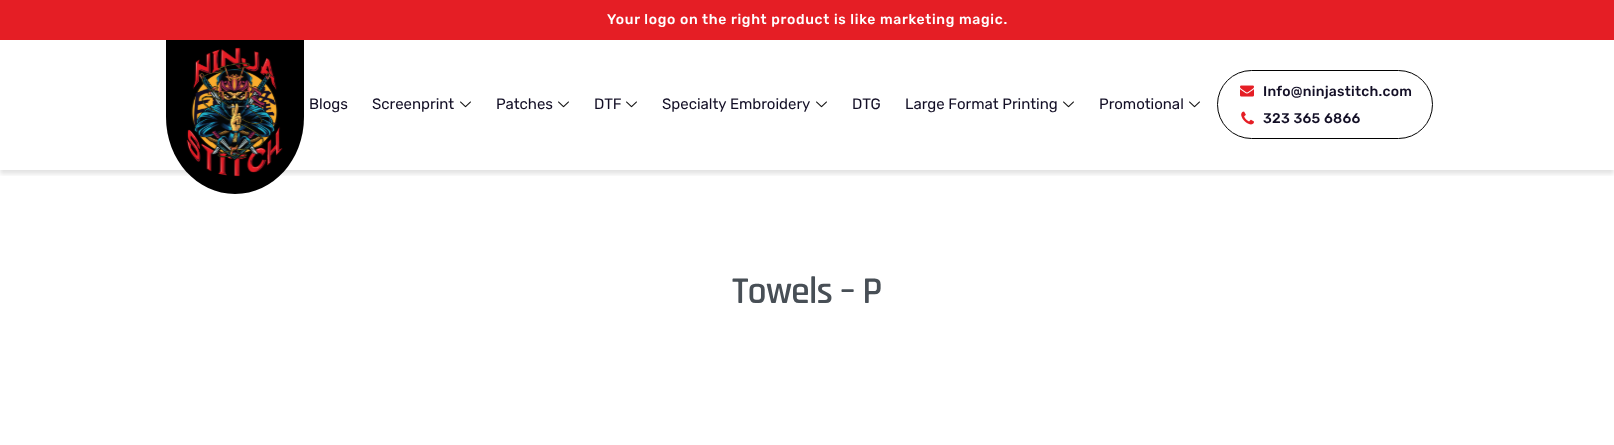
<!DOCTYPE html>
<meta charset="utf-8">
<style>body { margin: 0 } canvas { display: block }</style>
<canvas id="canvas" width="1614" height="445"></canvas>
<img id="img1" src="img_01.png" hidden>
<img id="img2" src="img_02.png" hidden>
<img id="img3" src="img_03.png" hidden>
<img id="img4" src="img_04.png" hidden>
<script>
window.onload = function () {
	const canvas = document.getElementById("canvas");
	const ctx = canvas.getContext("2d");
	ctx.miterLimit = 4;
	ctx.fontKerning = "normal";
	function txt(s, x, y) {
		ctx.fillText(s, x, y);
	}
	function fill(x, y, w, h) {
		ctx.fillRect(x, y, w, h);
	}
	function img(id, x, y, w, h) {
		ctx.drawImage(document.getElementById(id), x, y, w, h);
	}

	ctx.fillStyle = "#FFFFFF";
	fill(0, 0, 1614, 445);
	ctx.save();
	ctx.beginPath();
	ctx.rect(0, 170, 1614, 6);
	ctx.clip();
	ctx.fillStyle = "rgba(0, 0, 0, 0.11)";
	ctx.filter = "blur(2px)";
	ctx.beginPath();
	ctx.rect(0, 4, 1614, 170);
	ctx.fill();
	ctx.filter = "none";
	ctx.restore();
	ctx.fillStyle = "#E51E25";
	fill(0, 0, 1614, 40);
	ctx.fillStyle = "#000000";
	ctx.beginPath();
	ctx.moveTo(166, 40);
	ctx.lineTo(304, 40);
	ctx.lineTo(304, 117);
	ctx.bezierCurveTo(304, 160, 273, 194, 235, 194);
	ctx.bezierCurveTo(197, 194, 166, 160, 166, 117);
	ctx.closePath();
	ctx.fill();
	img("img1", 186, 47, 97, 130);
	img("img2", 460, 101, 11, 7);
	img("img2", 558, 101, 11, 7);
	img("img2", 626, 101, 11, 7);
	img("img2", 816, 101, 11, 7);
	img("img2", 1063, 101, 11, 7);
	img("img2", 1189, 101, 11, 7);
	ctx.beginPath();
	ctx.roundRect(1217.5, 70.5, 215, 68, 34);
	ctx.strokeStyle = "#010101";
	ctx.stroke();
	img("img3", 1240, 85, 14, 12);
	img("img4", 1241, 111, 13, 14);
	ctx.letterSpacing = "0.7px";
	ctx.font = "300 14px Rubik";
	ctx.fillStyle = "#FFFFFF";
	txt("Your logo on the right product is like marketing magic.", 607, 24);
	ctx.letterSpacing = "0px";
	ctx.font = "300 15px 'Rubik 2'";
	ctx.fillStyle = "#130F26";
	txt("Blogs", 309, 109);
	txt("Screenprint", 372, 109);
	txt("Patches", 496, 109);
	txt("DTF", 594, 109);
	txt("Specialty Embroidery", 662, 109);
	txt("DTG", 852, 109);
	txt("Large Format Printing", 905, 109);
	txt("Promotional", 1099, 109);
	ctx.letterSpacing = "0.25px";
	ctx.font = "300 14px Rubik";
	txt("Info@ninjastitch.com", 1263, 96);
	txt("323 365 6866", 1263, 123);
	ctx.letterSpacing = "-1px";
	ctx.font = "600 38px Rajdhani";
	ctx.fillStyle = "#484F56";
	txt("Towels – P", 732, 303);
};
</script>
